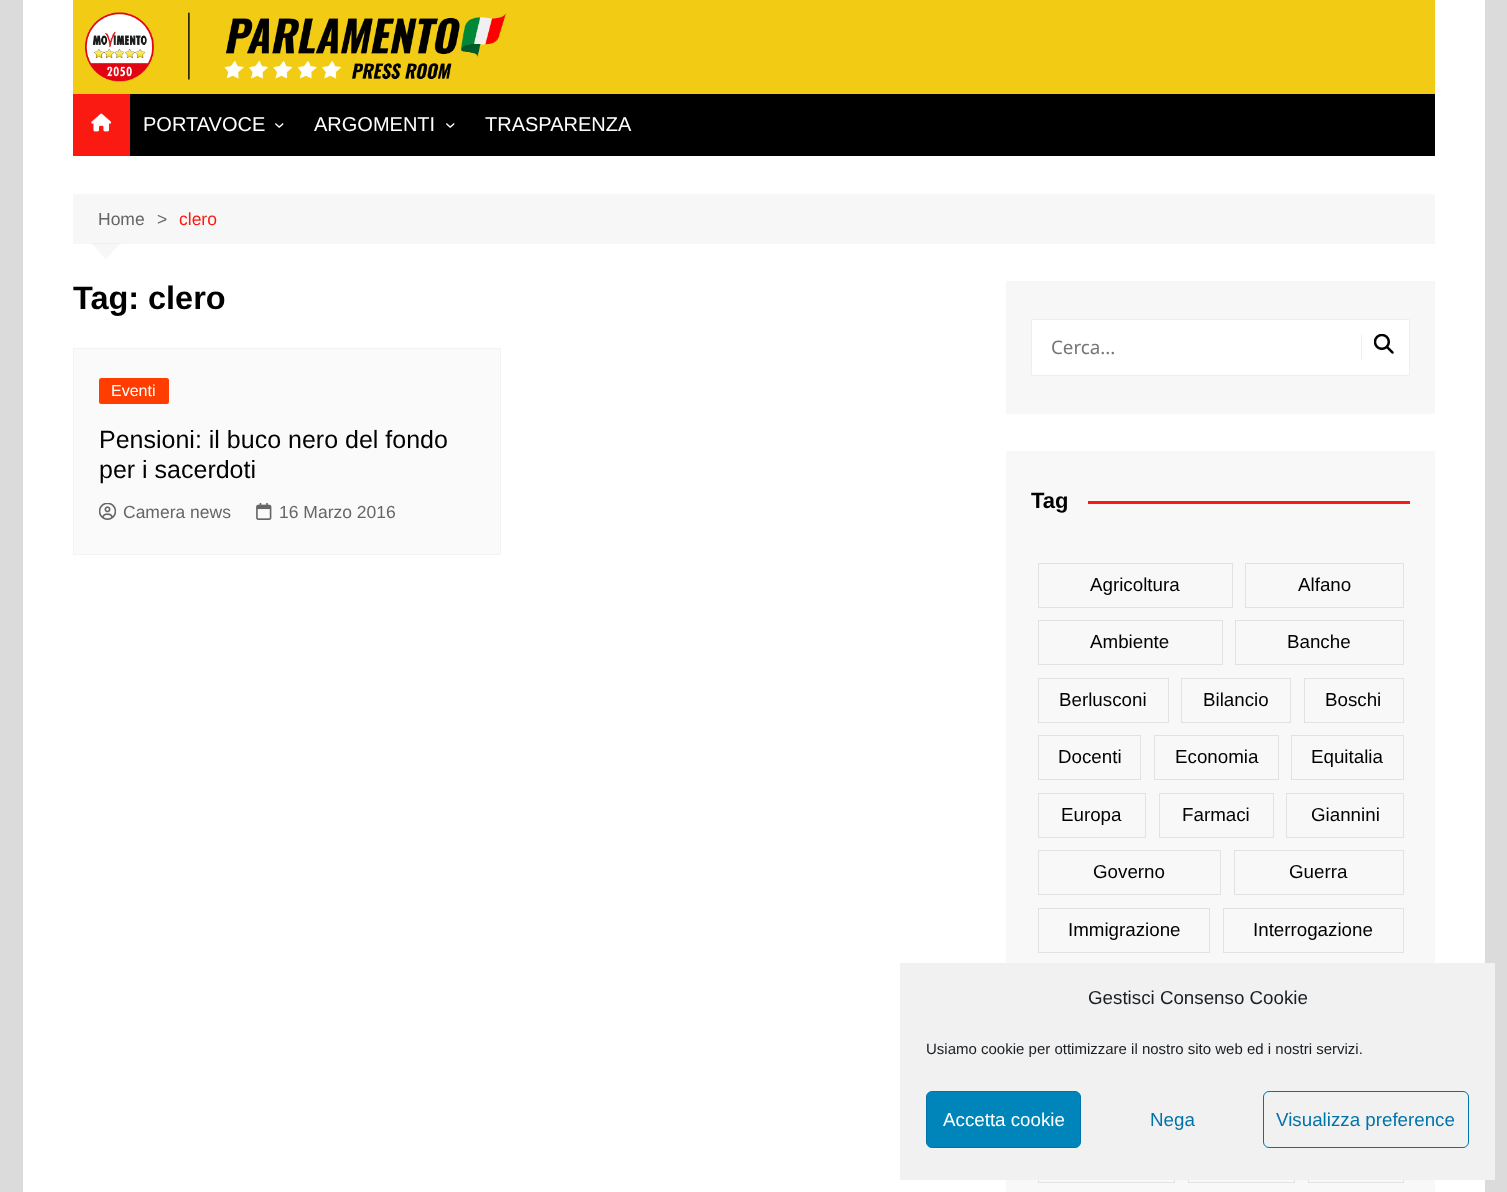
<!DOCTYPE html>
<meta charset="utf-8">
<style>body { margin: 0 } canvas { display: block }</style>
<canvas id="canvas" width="1507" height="1192"></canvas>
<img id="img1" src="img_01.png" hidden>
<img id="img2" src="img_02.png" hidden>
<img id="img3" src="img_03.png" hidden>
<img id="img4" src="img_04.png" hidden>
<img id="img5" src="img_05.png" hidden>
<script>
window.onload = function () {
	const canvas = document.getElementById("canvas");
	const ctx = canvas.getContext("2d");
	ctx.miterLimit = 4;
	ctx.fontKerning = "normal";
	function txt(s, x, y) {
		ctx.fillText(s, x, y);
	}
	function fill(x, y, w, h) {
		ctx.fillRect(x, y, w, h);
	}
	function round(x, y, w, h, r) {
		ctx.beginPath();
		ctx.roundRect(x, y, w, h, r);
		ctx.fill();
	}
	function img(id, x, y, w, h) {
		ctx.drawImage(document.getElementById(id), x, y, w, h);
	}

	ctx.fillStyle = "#DBDBDB";
	fill(0, 0, 1507, 1192);
	ctx.fillStyle = "#FFFFFF";
	fill(23, 0, 1462, 1192);
	ctx.fillStyle = "#F2CB14";
	fill(73, 0, 1362, 94);
	img("img1", 85, 12, 422, 70);
	ctx.fillStyle = "#000000";
	fill(130, 94, 1305, 62);
	ctx.fillStyle = "#FB1A11";
	fill(73, 94, 57, 62);
	img("img2", 91, 113, 20, 19);
	ctx.fillStyle = "#F7F7F7";
	fill(73, 194, 1362, 50);
	ctx.fillStyle = "rgba(0, 0, 0, 0.03)";
	ctx.beginPath();
	ctx.moveTo(91, 243);
	ctx.lineTo(121, 243);
	ctx.lineTo(106, 259.5);
	ctx.closePath();
	ctx.fill();
	ctx.fillStyle = "#FAFAFA";
	ctx.beginPath();
	ctx.rect(73.5, 348.5, 427, 206);
	ctx.fill();
	ctx.strokeStyle = "#F3F3F3";
	ctx.stroke();
	ctx.fillStyle = "#FF3D00";
	round(99, 378, 70, 26, 2.5);
	img("img3", 99, 503, 17, 17);
	img("img4", 256, 503, 16, 17);
	ctx.fillStyle = "#F7F7F7";
	fill(1006, 281, 429, 133);
	ctx.fillStyle = "#FFFFFF";
	ctx.beginPath();
	ctx.rect(1031.5, 319.5, 378, 56);
	ctx.fill();
	ctx.strokeStyle = "#EEEEEE";
	ctx.stroke();
	ctx.fillStyle = "#EEEEEE";
	fill(1361, 335, 1, 25);
	img("img5", 1374, 334, 20, 20);
	ctx.fillStyle = "#F8F8F8";
	fill(1006, 451, 429, 741);
	ctx.fillStyle = "#FB1A11";
	fill(1088, 501, 322, 3);
	ctx.strokeStyle = "#E2E2E2";
	ctx.strokeRect(1038.5, 563.5, 194, 44);
	ctx.strokeRect(1245.5, 563.5, 158, 44);
	ctx.strokeRect(1038.5, 620.5, 184, 44);
	ctx.strokeRect(1235.5, 620.5, 168, 44);
	ctx.strokeRect(1038.5, 678.5, 130, 44);
	ctx.strokeRect(1181.5, 678.5, 109, 44);
	ctx.strokeRect(1304.5, 678.5, 99, 44);
	ctx.strokeRect(1038.5, 735.5, 102, 44);
	ctx.strokeRect(1154.5, 735.5, 124, 44);
	ctx.strokeRect(1291.5, 735.5, 112, 44);
	ctx.strokeRect(1038.5, 793.5, 107, 44);
	ctx.strokeRect(1159.5, 793.5, 114, 44);
	ctx.strokeRect(1286.5, 793.5, 117, 44);
	ctx.strokeRect(1038.5, 850.5, 182, 44);
	ctx.strokeRect(1234.5, 850.5, 169, 44);
	ctx.strokeRect(1038.5, 908.5, 171, 44);
	ctx.strokeRect(1223.5, 908.5, 180, 44);
	ctx.strokeRect(1038.5, 1138.5, 136, 44);
	ctx.strokeRect(1188.5, 1138.5, 106, 44);
	ctx.strokeRect(1308.5, 1138.5, 95, 44);
	ctx.fillStyle = "#F1F1F1";
	fill(900, 963, 595, 217);
	ctx.fillStyle = "#0085BA";
	ctx.beginPath();
	ctx.roundRect(926.5, 1091.5, 154, 56, 5.5);
	ctx.fill();
	ctx.strokeStyle = "#0073AA";
	ctx.stroke();
	ctx.beginPath();
	ctx.roundRect(1263.5, 1091.5, 205, 56, 5.5);
	ctx.stroke();
	ctx.font = "20px Liberation Sans";
	ctx.fillStyle = "#FFFFFF";
	txt("PORTAVOCE", 143, 131);
	ctx.save();
	ctx.translate(274, 122);
	ctx.rotate(90 * Math.PI / 180);
	ctx.fillText("›", 0, 0);
	ctx.restore();
	txt("ARGOMENTI", 314, 131);
	ctx.save();
	ctx.translate(445, 122);
	ctx.rotate(90 * Math.PI / 180);
	ctx.fillText("›", 0, 0);
	ctx.restore();
	txt("TRASPARENZA", 485, 131);
	ctx.font = "17.5px Liberation Sans";
	ctx.fillStyle = "#666666";
	txt("Home", 98, 225);
	txt(">", 157, 225);
	ctx.fillStyle = "#FB1A11";
	txt("clero", 179, 225);
	ctx.save();
	ctx.beginPath();
	ctx.rect(73, 281, 896, 35);
	ctx.clip();
	ctx.font = "bold 32.5px Liberation Sans";
	ctx.fillStyle = "#010101";
	txt("Tag:", 73, 309);
	ctx.restore();
	ctx.font = "bold 32.5px Liberation Sans";
	ctx.fillStyle = "#010101";
	txt("clero", 148, 309);
	ctx.font = "16px Liberation Sans";
	ctx.fillStyle = "#FFFFFF";
	txt("Eventi", 111, 396);
	ctx.font = "25px Liberation Sans";
	ctx.fillStyle = "#010101";
	txt("Pensioni: il buco nero del fondo", 99, 448);
	txt("per i sacerdoti", 99, 478);
	ctx.font = "17.5px Liberation Sans";
	ctx.fillStyle = "#666666";
	txt("Camera news", 123, 518);
	txt("16 Marzo 2016", 279, 518);
	ctx.font = "18.75px Noto Sans";
	ctx.fillStyle = "#757575";
	txt("Cerca...", 1051, 354);
	ctx.font = "bold 22px Liberation Sans";
	ctx.fillStyle = "#010101";
	txt("Tag", 1031, 508);
	ctx.font = "18.75px Liberation Sans";
	txt("Agricoltura", 1090, 591);
	txt("Alfano", 1298, 591);
	txt("Ambiente", 1090, 648);
	txt("Banche", 1287, 648);
	txt("Berlusconi", 1059, 706);
	txt("Bilancio", 1203, 706);
	txt("Boschi", 1325, 706);
	txt("Docenti", 1058, 763);
	txt("Economia", 1175, 763);
	txt("Equitalia", 1311, 763);
	txt("Europa", 1061, 821);
	txt("Farmaci", 1182, 821);
	txt("Giannini", 1311, 821);
	txt("Governo", 1093, 878);
	txt("Guerra", 1289, 878);
	txt("Immigrazione", 1068, 936);
	txt("Interrogazione", 1253, 936);
	ctx.fillStyle = "#191E23";
	txt("Gestisci Consenso Cookie", 1088, 1004);
	ctx.font = "15px Liberation Sans";
	txt("Usiamo cookie per ottimizzare il nostro sito web ed i nostri servizi.", 926, 1054);
	ctx.font = "18.75px Liberation Sans";
	ctx.fillStyle = "#FFFFFF";
	txt("Accetta cookie", 943, 1126);
	ctx.fillStyle = "#0073AA";
	txt("Nega", 1150, 1126);
	txt("Visualizza preference", 1276, 1126);
};
</script>
